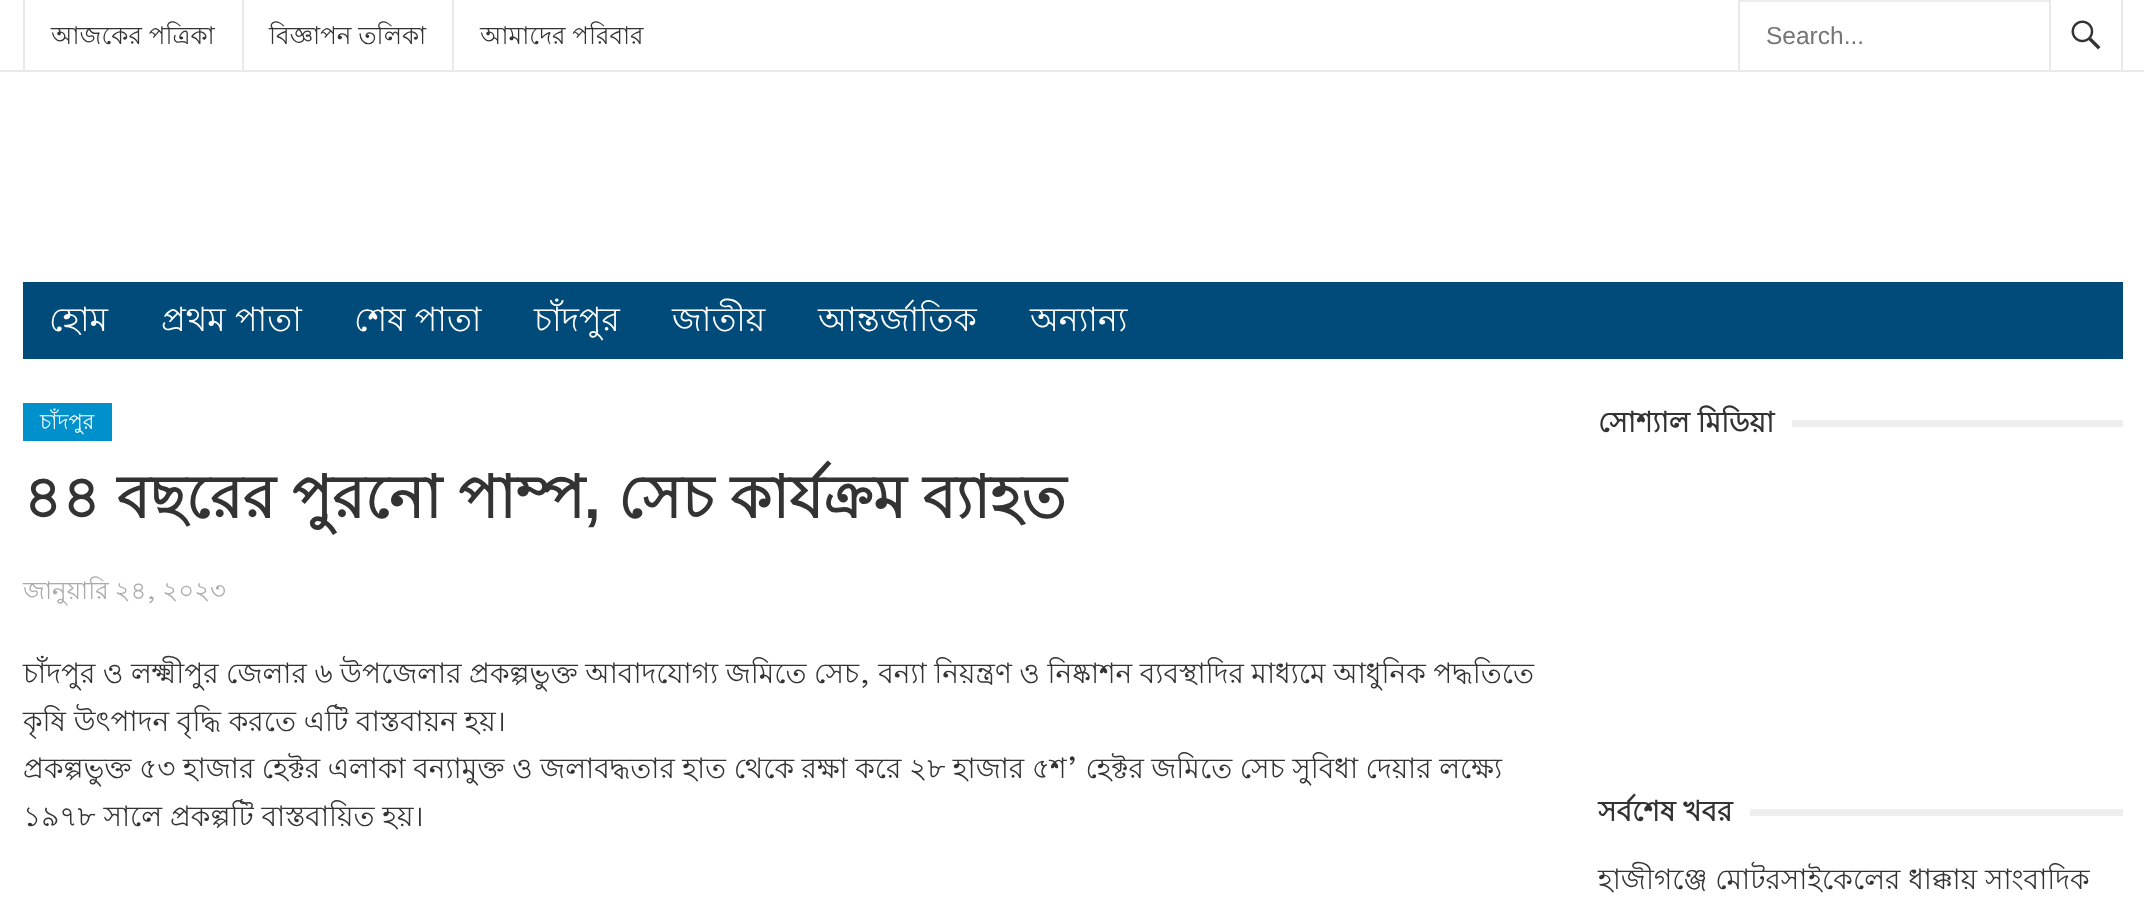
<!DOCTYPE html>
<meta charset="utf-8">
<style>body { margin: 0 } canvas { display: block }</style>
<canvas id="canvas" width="2144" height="900"></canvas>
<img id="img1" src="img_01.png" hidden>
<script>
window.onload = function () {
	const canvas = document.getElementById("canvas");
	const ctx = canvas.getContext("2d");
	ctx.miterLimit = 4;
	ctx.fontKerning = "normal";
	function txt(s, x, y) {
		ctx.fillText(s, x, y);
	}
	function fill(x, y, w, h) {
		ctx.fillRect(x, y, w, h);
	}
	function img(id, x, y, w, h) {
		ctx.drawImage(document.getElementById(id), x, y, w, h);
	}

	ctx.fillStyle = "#FFFFFF";
	fill(0, 0, 2144, 900);
	ctx.fillStyle = "#E9E9E9";
	fill(0, 70, 2144, 2);
	fill(23, 0, 2, 70);
	fill(242, 0, 2, 70);
	fill(452, 0, 2, 70);
	fill(2121, 0, 2, 70);
	fill(1738, 0, 2, 70);
	ctx.fillStyle = "#ECECEC";
	fill(1740, 0, 313, 2);
	ctx.fillStyle = "#FFFFFF";
	fill(2051, 0, 2, 2);
	ctx.fillStyle = "#E9E9E9";
	fill(2049, 0, 2, 70);
	img("img1", 2071, 20, 30, 30);
	ctx.fillStyle = "#004B79";
	fill(23, 282, 2100, 77);
	ctx.fillStyle = "#0091CD";
	fill(23, 403, 89, 38);
	ctx.fillStyle = "#EEEEEE";
	fill(1792, 420, 331, 7);
	fill(1750, 809, 373, 7);
	ctx.font = "24.5px Lohit Bengali";
	ctx.fillStyle = "#333333";
	txt("আজকের পত্রিকা", 51, 44);
	txt("বিজ্ঞাপন তলিকা", 269, 44);
	txt("আমাদের পরিবার", 480, 44);
	ctx.font = "24.5px Liberation Sans";
	ctx.fillStyle = "#757575";
	txt("Search...", 1766, 44);
	ctx.font = "33.25px Lohit Bengali";
	ctx.fillStyle = "#FFFFFF";
	txt("হোম", 49, 331);
	txt("প্রথম পাতা", 161, 331);
	txt("শেষ পাতা", 354, 331);
	txt("চাঁদপুর", 534, 331);
	txt("জাতীয়", 672, 331);
	txt("আন্তর্জাতিক", 818, 331);
	txt("অন্যান্য", 1030, 331);
	ctx.font = "21px Lohit Bengali";
	txt("চাঁদপুর", 40, 429);
	ctx.font = "bold 59.5px Lohit Bengali";
	ctx.fillStyle = "#333333";
	txt("৪৪ বছরের পুরনো পাম্প", 23, 518);
	ctx.font = "bold 59.5px Liberation Sans";
	txt(",", 584, 518);
	ctx.font = "bold 59.5px Lohit Bengali";
	txt("সেচ কার্যক্রম ব্যাহত", 618, 518);
	ctx.wordSpacing = "-1px";
	ctx.font = "24.5px Lohit Bengali";
	ctx.fillStyle = "#AAAAAA";
	txt("জানুয়ারি ২৪, ২০২৩", 23, 599);
	ctx.wordSpacing = "-0.25px";
	ctx.font = "28px Lohit Bengali";
	ctx.fillStyle = "#333333";
	txt("চাঁদপুর ও লক্ষ্মীপুর জেলার ৬ উপজেলার প্রকল্পভুক্ত আবাদযোগ্য জমিতে সেচ, বন্যা নিয়ন্ত্রণ ও নিষ্কাশন ব্যবস্থাদির মাধ্যমে আধুনিক পদ্ধতিতে", 23, 683);
	ctx.wordSpacing = "0px";
	txt("কৃষি উৎপাদন বৃদ্ধি করতে এটি বাস্তবায়ন হয়।", 23, 731);
	ctx.wordSpacing = "-0.25px";
	txt("প্রকল্পভুক্ত ৫৩ হাজার হেক্টর এলাকা বন্যামুক্ত ও জলাবদ্ধতার হাত থেকে রক্ষা করে ২৮ হাজার ৫শ’ হেক্টর জমিতে সেচ সুবিধা দেয়ার লক্ষ্যে", 23, 778);
	ctx.wordSpacing = "0px";
	txt("১৯৭৮ সালে প্রকল্পটি বাস্তবায়িত হয়।", 23, 826);
	ctx.font = "bold 28px Lohit Bengali";
	txt("সোশ্যাল মিডিয়া", 1598, 432);
	txt("সর্বশেষ খবর", 1598, 821);
	ctx.font = "28px Lohit Bengali";
	txt("হাজীগঞ্জে মোটরসাইকেলের ধাক্কায় সাংবাদিক", 1598, 889);
};
</script>
